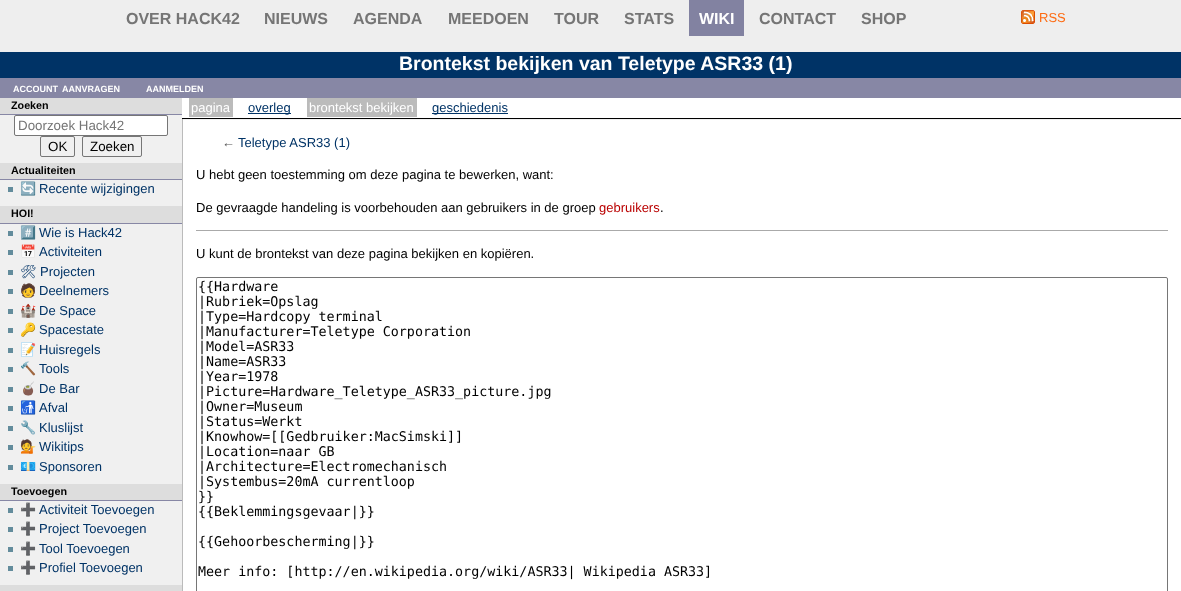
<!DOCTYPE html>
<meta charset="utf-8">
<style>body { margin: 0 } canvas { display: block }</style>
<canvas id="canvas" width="1181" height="591"></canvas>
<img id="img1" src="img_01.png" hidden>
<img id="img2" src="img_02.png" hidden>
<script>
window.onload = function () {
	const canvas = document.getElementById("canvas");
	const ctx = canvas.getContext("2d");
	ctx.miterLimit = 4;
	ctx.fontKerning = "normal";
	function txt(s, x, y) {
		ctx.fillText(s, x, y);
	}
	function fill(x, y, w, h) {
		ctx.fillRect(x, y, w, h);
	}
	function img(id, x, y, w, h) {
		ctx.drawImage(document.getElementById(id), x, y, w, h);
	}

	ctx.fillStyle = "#FFFFFF";
	fill(0, 0, 1181, 591);
	ctx.fillStyle = "#EEEEEE";
	fill(0, 0, 1181, 52);
	ctx.fillStyle = "#8282A1";
	fill(689, 0, 55, 36);
	img("img1", 1021, 10, 14, 14);
	ctx.fillStyle = "#003366";
	fill(0, 52, 1181, 26);
	ctx.fillStyle = "#8787A5";
	fill(0, 78, 1181, 20);
	ctx.fillStyle = "#F0F0F0";
	fill(0, 115, 182, 470);
	ctx.fillStyle = "#BBBBBB";
	fill(182, 119, 1, 472);
	ctx.fillStyle = "#DDDDDD";
	fill(0, 98, 182, 16);
	ctx.fillStyle = "#8787A5";
	fill(0, 114, 182, 1);
	ctx.fillStyle = "#FFFFFF";
	ctx.beginPath();
	ctx.roundRect(14.5, 115.5, 153, 20, 1.5);
	ctx.fill();
	ctx.strokeStyle = "#767676";
	ctx.stroke();
	ctx.beginPath();
	ctx.roundRect(40.5, 136.5, 34, 20, 1.5);
	ctx.stroke();
	ctx.beginPath();
	ctx.roundRect(82.5, 136.5, 59, 20, 1.5);
	ctx.stroke();
	ctx.fillStyle = "#DDDDDD";
	fill(0, 163, 182, 16);
	ctx.fillStyle = "#8787A5";
	fill(0, 179, 182, 1);
	ctx.fillStyle = "#638C9C";
	fill(8, 187, 5, 5);
	ctx.fillStyle = "#DDDDDD";
	fill(0, 206, 182, 17);
	ctx.fillStyle = "#8787A5";
	fill(0, 223, 182, 1);
	ctx.fillStyle = "#638C9C";
	fill(8, 231, 5, 5);
	fill(8, 250, 5, 5);
	fill(8, 270, 5, 5);
	fill(8, 289, 5, 5);
	fill(8, 309, 5, 5);
	fill(8, 328, 5, 5);
	fill(8, 348, 5, 5);
	fill(8, 367, 5, 5);
	fill(8, 387, 5, 5);
	fill(8, 406, 5, 5);
	fill(8, 426, 5, 5);
	fill(8, 445, 5, 5);
	fill(8, 465, 5, 5);
	ctx.fillStyle = "#DDDDDD";
	fill(0, 484, 182, 16);
	ctx.fillStyle = "#8787A5";
	fill(0, 500, 182, 1);
	ctx.fillStyle = "#638C9C";
	fill(8, 508, 5, 5);
	fill(8, 527, 5, 5);
	fill(8, 547, 5, 5);
	fill(8, 566, 5, 5);
	ctx.fillStyle = "#DDDDDD";
	fill(0, 585, 182, 6);
	ctx.fillStyle = "#000000";
	fill(182, 118, 999, 1);
	ctx.fillStyle = "#BBBBBB";
	fill(189, 98, 44, 19);
	ctx.fillStyle = "#003366";
	fill(248, 113, 43, 1);
	ctx.fillStyle = "#BBBBBB";
	fill(307, 98, 110, 19);
	ctx.fillStyle = "#003366";
	fill(432, 113, 76, 1);
	img("img2", 183, 119, 998, 1);
	ctx.fillStyle = "#AAAAAA";
	fill(196, 230, 972, 1);
	ctx.beginPath();
	ctx.roundRect(196.5, 277.5, 971, 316, 1.5);
	ctx.stroke();
	ctx.font = "bold 16px Liberation Sans";
	ctx.fillStyle = "#757575";
	txt("OVER HACK42", 126, 24);
	txt("NIEUWS", 264, 24);
	txt("AGENDA", 353, 24);
	txt("MEEDOEN", 448, 24);
	txt("TOUR", 554, 24);
	txt("STATS", 624, 24);
	ctx.fillStyle = "#FFFFFF";
	txt("WIKI", 699, 24);
	ctx.fillStyle = "#757575";
	txt("CONTACT", 759, 24);
	txt("SHOP", 861, 24);
	ctx.font = "13px Liberation Sans";
	ctx.fillStyle = "#FD6A11";
	txt("RSS", 1039, 22);
	ctx.save();
	ctx.beginPath();
	ctx.rect(10, 52, 1171, 22);
	ctx.clip();
	ctx.font = "bold 19.5px Liberation Sans";
	ctx.fillStyle = "#FFFFFF";
	txt("Brontekst bekijken van Teletype ASR33 (1)", 399, 70);
	ctx.restore();
	ctx.font = "bold 9px Liberation Sans";
	ctx.fillStyle = "#FFFFFF";
	txt("ACCOUNT", 13, 92);
	txt("AANVRAGEN", 62, 92);
	txt("AANMELDEN", 146, 92);
	ctx.font = "bold 10.75px Liberation Sans";
	ctx.fillStyle = "#000000";
	txt("Zoeken", 11, 109);
	ctx.font = "13.35px Liberation Sans";
	ctx.fillStyle = "#757575";
	txt("Doorzoek Hack42", 18, 130);
	ctx.fillStyle = "#000000";
	txt("OK", 48, 151);
	txt("Zoeken", 90, 151);
	ctx.font = "bold 10.75px Liberation Sans";
	txt("Actualiteiten", 11, 174);
	ctx.font = "13px Noto Color Emoji";
	ctx.fillStyle = "#003366";
	txt("🔄", 20, 193);
	ctx.font = "13px Liberation Sans";
	txt("Recente wijzigingen", 39, 193);
	ctx.font = "bold 10.75px Liberation Sans";
	ctx.fillStyle = "#000000";
	txt("HOI!", 11, 217);
	ctx.font = "13px Noto Color Emoji";
	ctx.fillStyle = "#003366";
	txt("#️⃣", 20, 237);
	ctx.font = "13px Liberation Sans";
	txt("Wie is Hack42", 39, 237);
	ctx.font = "13px Noto Color Emoji";
	txt("📅", 20, 256);
	ctx.font = "13px Liberation Sans";
	txt("Activiteiten", 39, 256);
	ctx.font = "13px Noto Emoji";
	txt("🛠", 20, 276);
	ctx.font = "13px Liberation Sans";
	txt("Projecten", 40, 276);
	ctx.font = "13px Noto Color Emoji";
	txt("🧑", 20, 295);
	ctx.font = "13px Liberation Sans";
	txt("Deelnemers", 39, 295);
	ctx.font = "13px Noto Color Emoji";
	txt("🏰", 20, 315);
	ctx.font = "13px Liberation Sans";
	txt("De Space", 39, 315);
	ctx.font = "13px Noto Color Emoji";
	txt("🔑", 20, 334);
	ctx.font = "13px Liberation Sans";
	txt("Spacestate", 39, 334);
	ctx.font = "13px Noto Color Emoji";
	txt("📝", 20, 354);
	ctx.font = "13px Liberation Sans";
	txt("Huisregels", 39, 354);
	ctx.font = "13px Noto Color Emoji";
	txt("🔨", 20, 373);
	ctx.font = "13px Liberation Sans";
	txt("Tools", 39, 373);
	ctx.font = "13px Noto Color Emoji";
	txt("🧉", 20, 393);
	ctx.font = "13px Liberation Sans";
	txt("De Bar", 39, 393);
	ctx.font = "13px Noto Color Emoji";
	txt("🚮", 20, 412);
	ctx.font = "13px Liberation Sans";
	txt("Afval", 39, 412);
	ctx.font = "13px Noto Color Emoji";
	txt("🔧", 20, 432);
	ctx.font = "13px Liberation Sans";
	txt("Kluslijst", 39, 432);
	ctx.font = "13px Noto Color Emoji";
	txt("💁", 20, 451);
	ctx.font = "13px Liberation Sans";
	txt("Wikitips", 39, 451);
	ctx.font = "13px Noto Color Emoji";
	txt("💶", 20, 471);
	ctx.font = "13px Liberation Sans";
	txt("Sponsoren", 39, 471);
	ctx.font = "bold 10.75px Liberation Sans";
	ctx.fillStyle = "#000000";
	txt("Toevoegen", 11, 495);
	ctx.font = "13px Noto Color Emoji";
	ctx.fillStyle = "#003366";
	txt("➕", 20, 514);
	ctx.font = "13px Liberation Sans";
	txt("Activiteit Toevoegen", 39, 514);
	ctx.font = "13px Noto Color Emoji";
	txt("➕", 20, 533);
	ctx.font = "13px Liberation Sans";
	txt("Project Toevoegen", 39, 533);
	ctx.font = "13px Noto Color Emoji";
	txt("➕", 20, 553);
	ctx.font = "13px Liberation Sans";
	txt("Tool Toevoegen", 39, 553);
	ctx.font = "13px Noto Color Emoji";
	txt("➕", 20, 572);
	ctx.font = "13px Liberation Sans";
	txt("Profiel Toevoegen", 39, 572);
	ctx.fillStyle = "#FFFFFF";
	txt("pagina", 191, 112);
	ctx.fillStyle = "#003366";
	txt("overleg", 248, 112);
	ctx.fillStyle = "#FFFFFF";
	txt("brontekst bekijken", 309, 112);
	ctx.fillStyle = "#003366";
	txt("geschiedenis", 432, 112);
	ctx.fillStyle = "#545454";
	txt("←", 222, 147);
	ctx.fillStyle = "#003366";
	txt("Teletype ASR33 (1)", 238, 147);
	ctx.fillStyle = "#000000";
	txt("U hebt geen toestemming om deze pagina te bewerken, want:", 196, 179);
	txt("De gevraagde handeling is voorbehouden aan gebruikers in de groep", 196, 212);
	ctx.fillStyle = "#BA0000";
	txt("gebruikers", 599, 212);
	ctx.fillStyle = "#000000";
	txt(".", 660, 212);
	txt("U kunt de brontekst van deze pagina bekijken en kopiëren.", 196, 258);
	ctx.font = "13.35px DejaVu Sans Mono";
	txt("{{Hardware", 198, 291);
	txt("|Rubriek=Opslag", 198, 306);
	txt("|Type=Hardcopy terminal", 198, 321);
	txt("|Manufacturer=Teletype Corporation", 198, 336);
	txt("|Model=ASR33", 198, 351);
	txt("|Name=ASR33", 198, 366);
	txt("|Year=1978", 198, 381);
	txt("|Picture=Hardware_Teletype_ASR33_picture.jpg", 198, 396);
	txt("|Owner=Museum", 198, 411);
	txt("|Status=Werkt", 198, 426);
	txt("|Knowhow=[[Gedbruiker:MacSimski]]", 198, 441);
	txt("|Location=naar GB", 198, 456);
	txt("|Architecture=Electromechanisch", 198, 471);
	txt("|Systembus=20mA currentloop", 198, 486);
	txt("}}", 198, 501);
	txt("{{Beklemmingsgevaar|}}", 198, 516);
	txt("{{Gehoorbescherming|}}", 198, 546);
	txt("Meer info: [http://en.wikipedia.org/wiki/ASR33| Wikipedia ASR33]", 198, 576);
};
</script>
